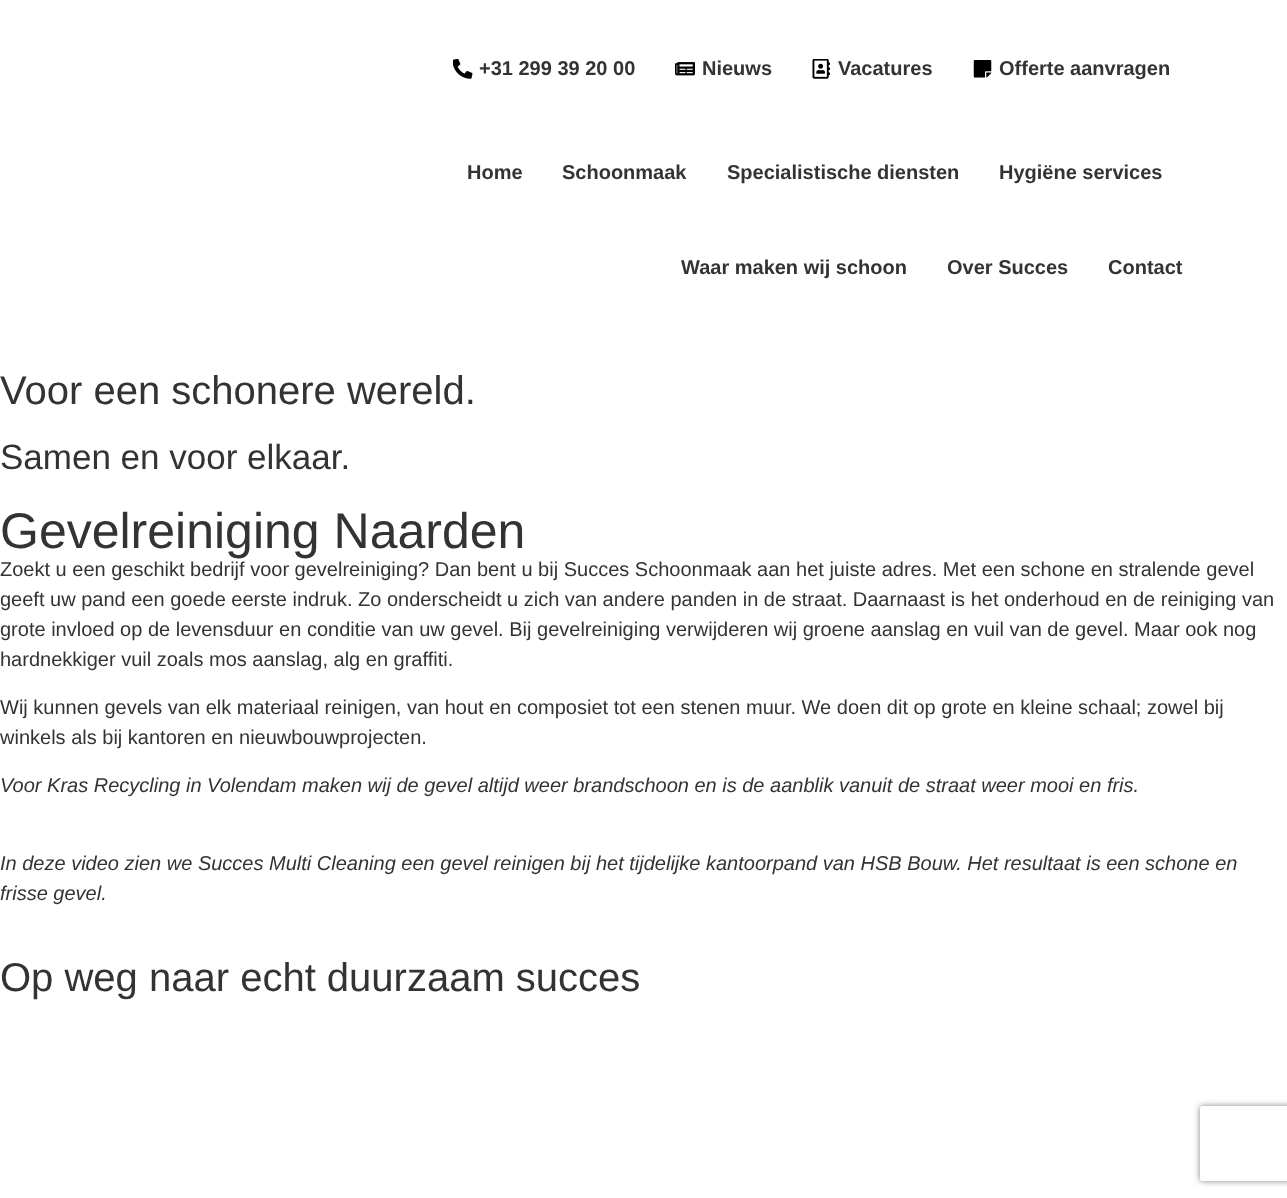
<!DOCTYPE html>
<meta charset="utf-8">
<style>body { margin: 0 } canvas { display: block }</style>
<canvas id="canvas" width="1287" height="1198"></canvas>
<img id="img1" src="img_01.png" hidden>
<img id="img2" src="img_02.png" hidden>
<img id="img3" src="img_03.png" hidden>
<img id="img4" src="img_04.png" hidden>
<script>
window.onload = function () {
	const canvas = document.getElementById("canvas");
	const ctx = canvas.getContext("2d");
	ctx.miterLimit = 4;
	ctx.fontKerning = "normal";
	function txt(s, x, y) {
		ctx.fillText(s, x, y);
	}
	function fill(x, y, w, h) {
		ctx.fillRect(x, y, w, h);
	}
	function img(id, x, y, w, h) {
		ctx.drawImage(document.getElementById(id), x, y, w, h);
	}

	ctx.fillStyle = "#FFFFFF";
	fill(0, 0, 1287, 1198);
	img("img1", 453, 59, 20, 20);
	img("img2", 675, 62, 20, 14);
	img("img3", 812, 59, 18, 20);
	img("img4", 973, 60, 19, 18);
	ctx.save();
	ctx.beginPath();
	ctx.moveTo(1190, 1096);
	ctx.lineTo(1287, 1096);
	ctx.lineTo(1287, 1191);
	ctx.lineTo(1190, 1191);
	ctx.closePath();
	ctx.moveTo(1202.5, 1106);
	ctx.lineTo(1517.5, 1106);
	ctx.bezierCurveTo(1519, 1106, 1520, 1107, 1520, 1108.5);
	ctx.lineTo(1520, 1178.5);
	ctx.bezierCurveTo(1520, 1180, 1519, 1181, 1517.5, 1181);
	ctx.lineTo(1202.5, 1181);
	ctx.bezierCurveTo(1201, 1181, 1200, 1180, 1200, 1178.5);
	ctx.lineTo(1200, 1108.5);
	ctx.bezierCurveTo(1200, 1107, 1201, 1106, 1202.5, 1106);
	ctx.closePath();
	ctx.clip("evenodd");
	ctx.fillStyle = "#808080";
	ctx.filter = "blur(3px)";
	ctx.beginPath();
	ctx.roundRect(1200, 1106, 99, 75, 2.5);
	ctx.fill();
	ctx.filter = "none";
	ctx.restore();
	ctx.font = "bold 20px Liberation Sans";
	ctx.fillStyle = "#333333";
	txt("+31 299 39 20 00", 479, 75);
	txt("Nieuws", 702, 75);
	txt("Vacatures", 838, 75);
	txt("Offerte aanvragen", 999, 75);
	txt("Home", 467, 179);
	txt("Schoonmaak", 562, 179);
	txt("Specialistische diensten", 727, 179);
	txt("Hygiëne services", 999, 179);
	txt("Waar maken wij schoon", 681, 274);
	txt("Over Succes", 947, 274);
	txt("Contact", 1108, 274);
	ctx.font = "40px Liberation Sans";
	txt("Voor een schonere wereld.", 0, 404);
	ctx.font = "35px Liberation Sans";
	txt("Samen en voor elkaar.", 0, 469);
	ctx.font = "50px Liberation Sans";
	txt("Gevelreiniging Naarden", 0, 548);
	ctx.font = "20px Liberation Sans";
	txt("Zoekt u een geschikt bedrijf voor gevelreiniging? Dan bent u bij Succes Schoonmaak aan het juiste adres. Met een schone en stralende gevel", 0, 576);
	txt("geeft uw pand een goede eerste indruk. Zo onderscheidt u zich van andere panden in de straat. Daarnaast is het onderhoud en de reiniging van", 0, 606);
	txt("grote invloed op de levensduur en conditie van uw gevel. Bij gevelreiniging verwijderen wij groene aanslag en vuil van de gevel. Maar ook nog", 0, 636);
	txt("hardnekkiger vuil zoals mos aanslag, alg en graffiti.", 0, 666);
	txt("Wij kunnen gevels van elk materiaal reinigen, van hout en composiet tot een stenen muur. We doen dit op grote en kleine schaal; zowel bij", 0, 714);
	txt("winkels als bij kantoren en nieuwbouwprojecten.", 0, 744);
	ctx.font = "italic 20px Liberation Sans";
	txt("Voor Kras Recycling in Volendam maken wij de gevel altijd weer brandschoon en is de aanblik vanuit de straat weer mooi en fris.", 0, 792);
	txt("In deze video zien we Succes Multi Cleaning een gevel reinigen bij het tijdelijke kantoorpand van HSB Bouw. Het resultaat is een schone en", 0, 870);
	txt("frisse gevel.", 0, 900);
	ctx.font = "40px Liberation Sans";
	txt("Op weg naar echt duurzaam succes", 0, 991);
};
</script>
